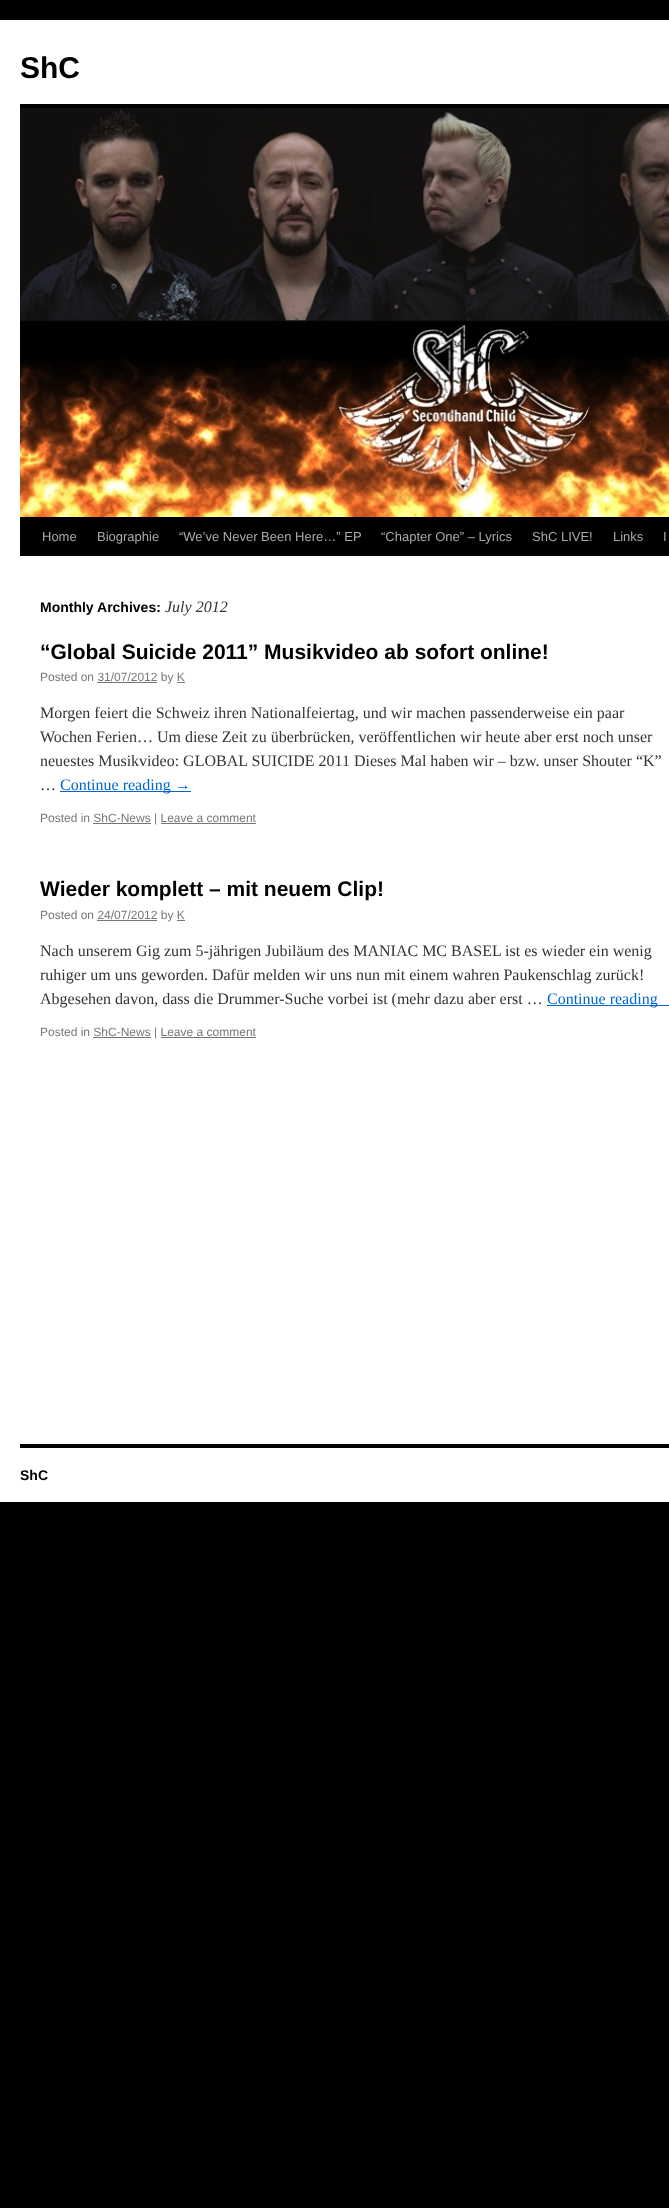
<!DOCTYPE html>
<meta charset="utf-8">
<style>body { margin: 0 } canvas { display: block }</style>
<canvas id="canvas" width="669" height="2208"></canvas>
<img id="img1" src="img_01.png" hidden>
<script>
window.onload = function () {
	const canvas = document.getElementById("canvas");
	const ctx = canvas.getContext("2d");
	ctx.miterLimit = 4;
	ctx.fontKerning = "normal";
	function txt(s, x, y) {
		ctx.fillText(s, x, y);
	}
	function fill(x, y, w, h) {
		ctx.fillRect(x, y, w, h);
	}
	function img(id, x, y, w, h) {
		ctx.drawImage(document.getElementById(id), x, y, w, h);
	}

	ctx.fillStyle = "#000000";
	fill(0, 0, 669, 2208);
	ctx.fillStyle = "#FFFFFF";
	fill(0, 20, 669, 1482);
	ctx.fillStyle = "#000000";
	fill(20, 104, 649, 4);
	fill(20, 517, 649, 39);
	img("img1", 20, 108, 649, 409);
	ctx.fillStyle = "#777777";
	fill(97, 682, 60, 1);
	fill(177, 682, 8, 1);
	ctx.fillStyle = "#0066CC";
	fill(60, 791, 131, 1);
	ctx.fillStyle = "#777777";
	fill(93, 823, 58, 1);
	fill(161, 823, 95, 1);
	fill(97, 920, 60, 1);
	fill(177, 920, 8, 1);
	ctx.fillStyle = "#0066CC";
	fill(547, 1005, 122, 1);
	ctx.fillStyle = "#777777";
	fill(93, 1037, 58, 1);
	fill(161, 1037, 95, 1);
	ctx.fillStyle = "#000000";
	fill(20, 1444, 649, 4);
	ctx.font = "bold 30px Liberation Sans";
	txt("ShC", 20, 78);
	ctx.font = "13px Liberation Sans";
	ctx.fillStyle = "#AAAAAA";
	txt("Home", 42, 541);
	txt("Biographie", 97, 541);
	txt("“We’ve Never Been Here…” EP", 179, 541);
	txt("“Chapter One” – Lyrics", 381, 541);
	txt("ShC LIVE!", 532, 541);
	txt("Links", 613, 541);
	txt("I", 663, 541);
	ctx.font = "bold 14px Liberation Sans";
	ctx.fillStyle = "#000000";
	txt("Monthly Archives:", 40, 612);
	ctx.font = "italic 16px Liberation Serif";
	ctx.fillStyle = "#333333";
	txt("July 2012", 165, 612);
	ctx.font = "bold 21px Liberation Sans";
	ctx.fillStyle = "#000000";
	txt("“Global Suicide 2011” Musikvideo ab sofort online!", 40, 659);
	ctx.font = "12px Liberation Sans";
	ctx.fillStyle = "#777777";
	txt("Posted on 31/07/2012 by K", 40, 681);
	ctx.font = "16px Liberation Serif";
	ctx.fillStyle = "#333333";
	txt("Morgen feiert die Schweiz ihren Nationalfeiertag, und wir machen passenderweise ein paar", 40, 718);
	txt("Wochen Ferien… Um diese Zeit zu überbrücken, veröffentlichen wir heute aber erst noch unser", 40, 742);
	txt("neuestes Musikvideo: GLOBAL SUICIDE 2011 Dieses Mal haben wir – bzw. unser Shouter “K”", 40, 766);
	txt("…", 40, 790);
	ctx.fillStyle = "#0066CC";
	txt("Continue reading →", 60, 790);
	ctx.font = "12px Liberation Sans";
	ctx.fillStyle = "#777777";
	txt("Posted in ShC-News | Leave a comment", 40, 822);
	ctx.font = "bold 21px Liberation Sans";
	ctx.fillStyle = "#000000";
	txt("Wieder komplett – mit neuem Clip!", 40, 896);
	ctx.font = "12px Liberation Sans";
	ctx.fillStyle = "#777777";
	txt("Posted on 24/07/2012 by K", 40, 919);
	ctx.font = "16px Liberation Serif";
	ctx.fillStyle = "#333333";
	txt("Nach unserem Gig zum 5-jährigen Jubiläum des MANIAC MC BASEL ist es wieder ein wenig", 40, 956);
	txt("ruhiger um uns geworden. Dafür melden wir uns nun mit einem wahren Paukenschlag zurück!", 40, 980);
	txt("Abgesehen davon, dass die Drummer-Suche vorbei ist (mehr dazu aber erst …", 40, 1004);
	ctx.fillStyle = "#0066CC";
	txt("Continue reading", 547, 1004);
	ctx.font = "12px Liberation Sans";
	ctx.fillStyle = "#777777";
	txt("Posted in ShC-News | Leave a comment", 40, 1036);
	ctx.font = "bold 14px Liberation Sans";
	ctx.fillStyle = "#000000";
	txt("ShC", 20, 1480);
};
</script>
